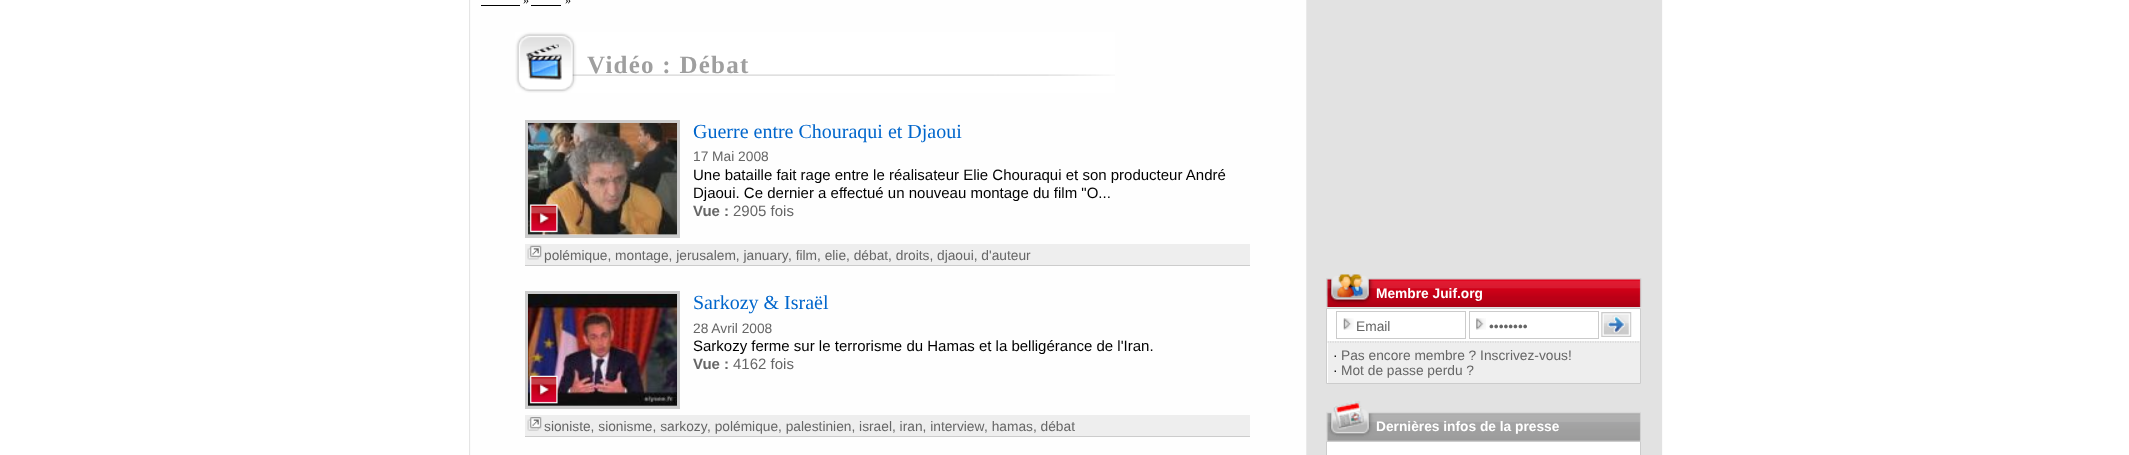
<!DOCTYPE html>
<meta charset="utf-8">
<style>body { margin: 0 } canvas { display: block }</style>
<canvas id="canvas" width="2129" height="455"></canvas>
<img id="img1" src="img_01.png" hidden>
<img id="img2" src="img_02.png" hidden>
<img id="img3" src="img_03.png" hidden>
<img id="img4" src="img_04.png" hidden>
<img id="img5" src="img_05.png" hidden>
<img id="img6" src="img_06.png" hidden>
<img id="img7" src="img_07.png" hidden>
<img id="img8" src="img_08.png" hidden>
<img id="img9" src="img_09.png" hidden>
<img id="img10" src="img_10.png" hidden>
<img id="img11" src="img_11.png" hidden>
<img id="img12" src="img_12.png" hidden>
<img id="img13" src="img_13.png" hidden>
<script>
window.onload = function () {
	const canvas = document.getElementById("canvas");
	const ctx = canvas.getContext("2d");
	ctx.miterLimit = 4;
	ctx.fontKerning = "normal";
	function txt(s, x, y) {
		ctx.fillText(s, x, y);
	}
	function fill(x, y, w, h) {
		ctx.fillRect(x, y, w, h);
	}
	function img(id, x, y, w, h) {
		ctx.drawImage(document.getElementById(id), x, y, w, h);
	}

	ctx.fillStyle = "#FFFFFF";
	fill(0, 0, 2129, 455);
	img("img1", 469, 0, 1194, 455);
	ctx.fillStyle = "#000000";
	fill(481, 5, 39, 1);
	fill(531, 5, 30, 1);
	img("img2", 515, 32, 600, 61);
	ctx.fillStyle = "#CCCCCC";
	fill(525, 265, 725, 1);
	img("img3", 528, 123, 149, 112);
	ctx.strokeStyle = "#CCCCCC";
	ctx.lineWidth = 3;
	ctx.strokeRect(526.5, 121.5, 152, 115);
	img("img4", 529, 204, 29, 29);
	ctx.fillStyle = "#EEEEEE";
	fill(525, 244, 725, 21);
	img("img5", 527, 245, 15, 15);
	ctx.fillStyle = "#CCCCCC";
	fill(525, 436, 725, 1);
	img("img6", 528, 294, 149, 112);
	ctx.strokeRect(526.5, 292.5, 152, 115);
	img("img7", 529, 375, 29, 29);
	ctx.fillStyle = "#EEEEEE";
	fill(525, 415, 725, 21);
	img("img8", 527, 417, 15, 14);
	img("img9", 1326, 274, 316, 33);
	ctx.fillStyle = "#FFFFFF";
	ctx.beginPath();
	ctx.rect(1326.5, 308.5, 314, 75);
	ctx.fill();
	ctx.lineWidth = 1;
	ctx.stroke();
	img("img10", 1343, 318, 11, 12);
	ctx.strokeStyle = "#CBCBCB";
	ctx.strokeRect(1336.5, 311.5, 129, 27);
	img("img11", 1476, 318, 10, 12);
	ctx.strokeRect(1469.5, 311.5, 129, 27);
	img("img12", 1601, 312, 31, 25);
	ctx.fillStyle = "#EEEEEE";
	fill(1328, 341, 312, 42);
	ctx.beginPath();
	ctx.moveTo(1327.5, 342);
	ctx.lineTo(1640, 342);
	ctx.strokeStyle = "#CCCCCC";
	ctx.lineWidth = 1.2;
	ctx.setLineDash([1.25, 1.25]);
	ctx.stroke();
	img("img13", 1326, 400, 315, 41);
	ctx.fillStyle = "#FFFFFF";
	ctx.beginPath();
	ctx.rect(1326.5, 441.5, 314, 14);
	ctx.fill();
	ctx.lineWidth = 1;
	ctx.setLineDash([]);
	ctx.stroke();
	ctx.font = "12px Liberation Serif";
	ctx.fillStyle = "#000000";
	txt("»", 523, 4);
	txt("»", 565, 4);
	ctx.letterSpacing = "1.25px";
	ctx.font = "bold 25px Liberation Serif";
	ctx.fillStyle = "#9F9F9F";
	txt("Vidéo : Débat", 587, 73);
	ctx.letterSpacing = "0px";
	ctx.font = "20px Liberation Serif";
	ctx.fillStyle = "#0066CC";
	txt("Guerre entre Chouraqui et Djaoui", 693, 138);
	ctx.font = "13.75px Liberation Sans";
	ctx.fillStyle = "#666666";
	txt("17 Mai 2008", 693, 161);
	ctx.font = "15px Liberation Sans";
	ctx.fillStyle = "#000000";
	txt("Une bataille fait rage entre le réalisateur Elie Chouraqui et son producteur André", 693, 180);
	txt("Djaoui. Ce dernier a effectué un nouveau montage du film \"O...", 693, 198);
	ctx.font = "bold 15px Liberation Sans";
	ctx.fillStyle = "#666666";
	txt("Vue :", 693, 216);
	ctx.font = "15px Liberation Sans";
	txt("2905 fois", 733, 216);
	ctx.font = "13.75px Liberation Sans";
	txt("polémique, montage, jerusalem, january", 544, 260);
	txt(", film, elie, débat, droits, djaoui, d'auteur", 788, 260);
	ctx.font = "20px Liberation Serif";
	ctx.fillStyle = "#0066CC";
	txt("Sarkozy & Israël", 693, 309);
	ctx.font = "13.75px Liberation Sans";
	ctx.fillStyle = "#666666";
	txt("28 Avril 2008", 693, 333);
	ctx.font = "15px Liberation Sans";
	ctx.fillStyle = "#000000";
	txt("Sarkozy ferme sur le terrorisme du Hamas et la belligérance de l'Iran.", 693, 351);
	ctx.font = "bold 15px Liberation Sans";
	ctx.fillStyle = "#666666";
	txt("Vue :", 693, 369);
	ctx.font = "15px Liberation Sans";
	txt("4162 fois", 733, 369);
	ctx.font = "13.75px Liberation Sans";
	txt("sioniste, sionisme, sarkozy", 544, 431);
	txt(", polémique, palestinien, israel, iran, interview", 707, 431);
	txt(", hamas, débat", 984, 431);
	ctx.font = "bold 13.75px Liberation Sans";
	ctx.fillStyle = "#FFFFFF";
	txt("Membre Juif.org", 1376, 298);
	ctx.font = "13.75px Liberation Sans";
	ctx.fillStyle = "#666666";
	txt("Email", 1356, 331);
	txt("••••••••", 1489, 331);
	ctx.fillStyle = "#000000";
	txt("·", 1333, 360);
	ctx.fillStyle = "#666666";
	txt("Pas encore membre ? Inscrivez-vous!", 1341, 360);
	ctx.fillStyle = "#000000";
	txt("·", 1333, 375);
	ctx.fillStyle = "#666666";
	txt("Mot de passe perdu ?", 1341, 375);
	ctx.font = "bold 13.75px Liberation Sans";
	ctx.fillStyle = "#FFFFFF";
	txt("Dernières infos de la presse", 1376, 431);
};
</script>
